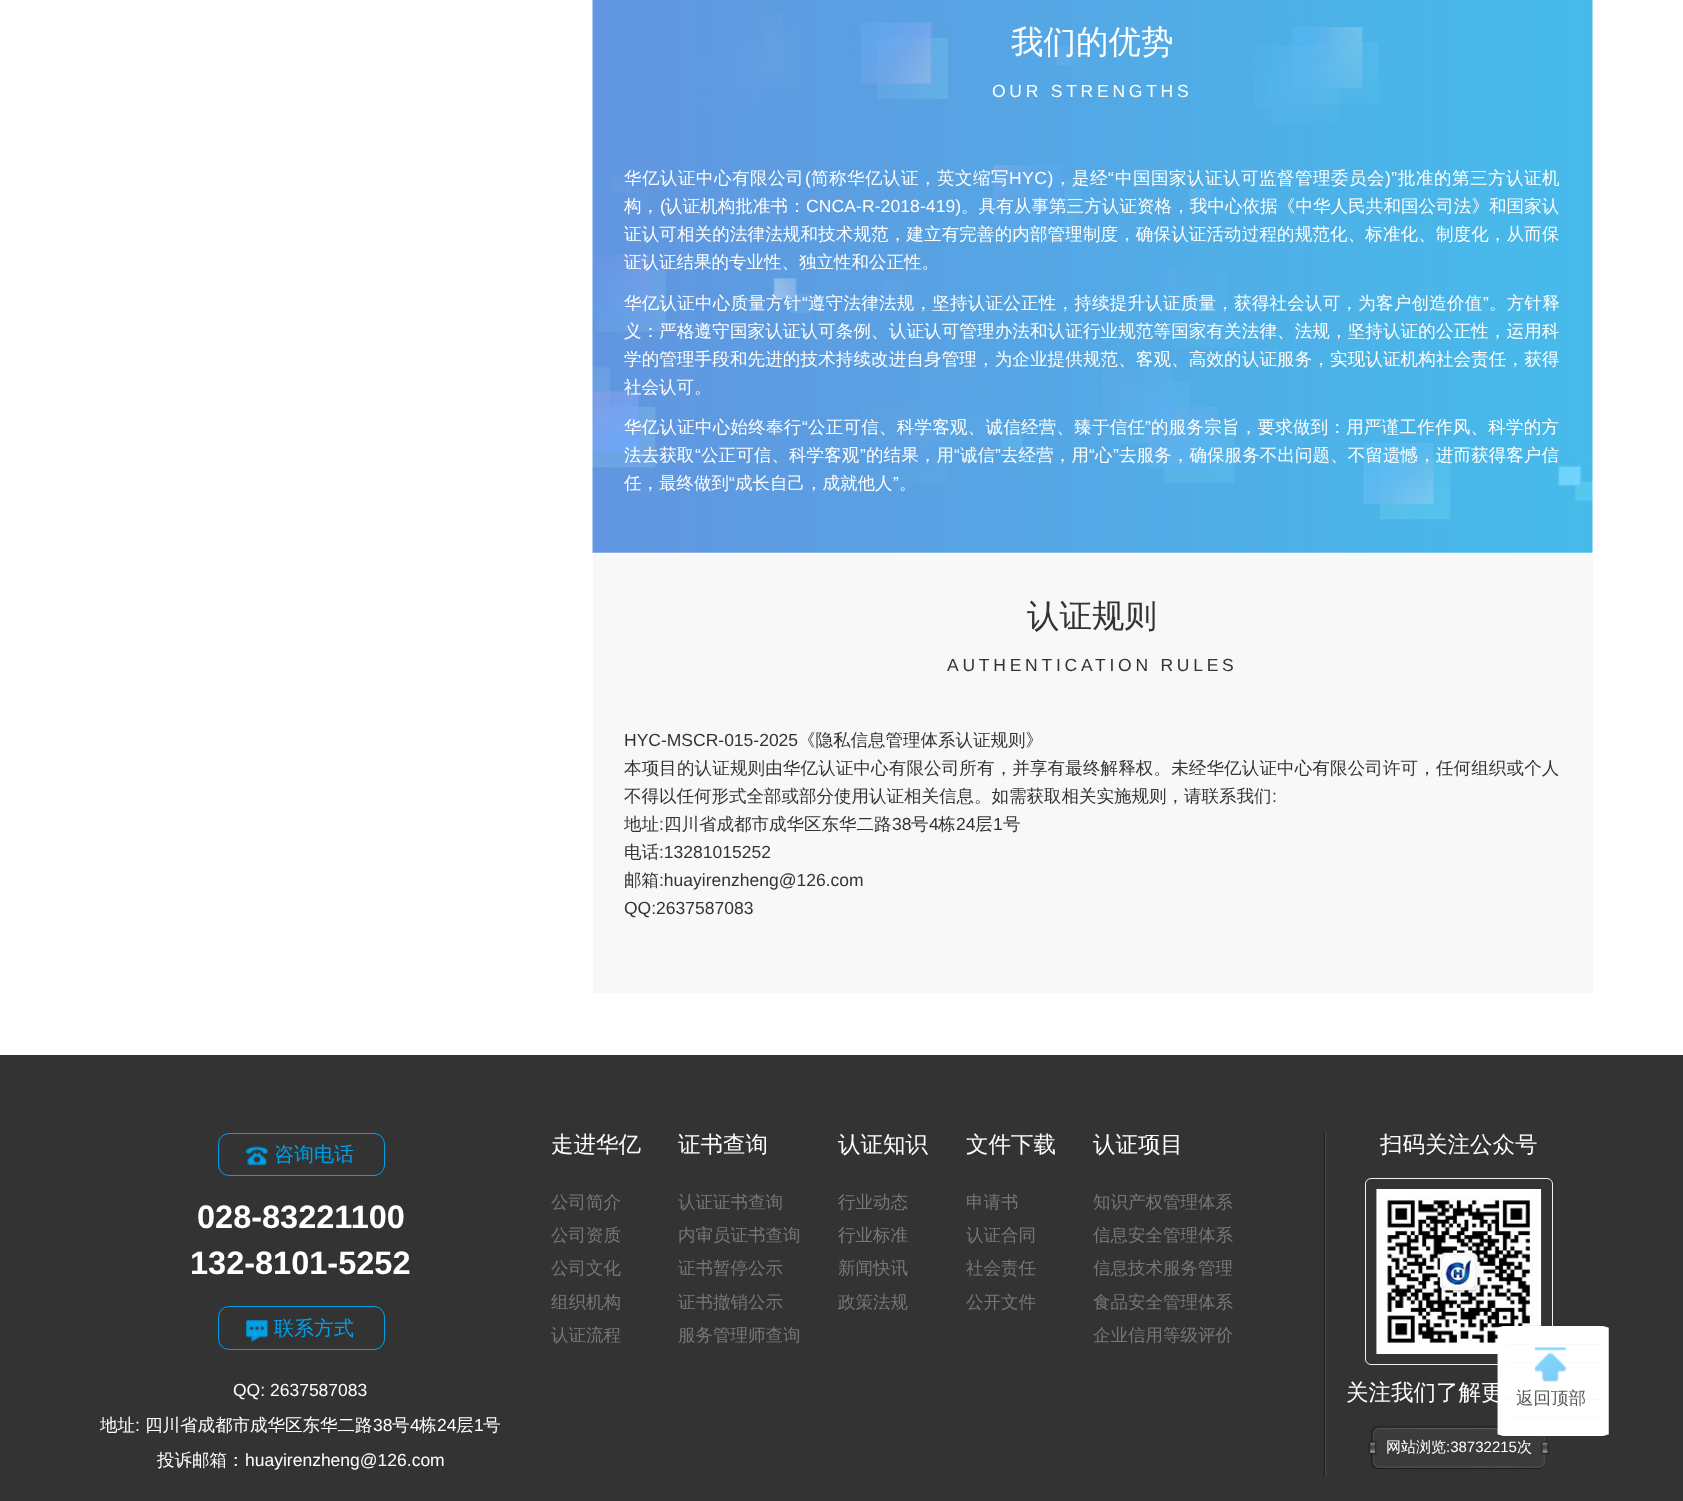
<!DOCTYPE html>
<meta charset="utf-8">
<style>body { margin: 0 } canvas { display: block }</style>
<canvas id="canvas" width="1683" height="1501"></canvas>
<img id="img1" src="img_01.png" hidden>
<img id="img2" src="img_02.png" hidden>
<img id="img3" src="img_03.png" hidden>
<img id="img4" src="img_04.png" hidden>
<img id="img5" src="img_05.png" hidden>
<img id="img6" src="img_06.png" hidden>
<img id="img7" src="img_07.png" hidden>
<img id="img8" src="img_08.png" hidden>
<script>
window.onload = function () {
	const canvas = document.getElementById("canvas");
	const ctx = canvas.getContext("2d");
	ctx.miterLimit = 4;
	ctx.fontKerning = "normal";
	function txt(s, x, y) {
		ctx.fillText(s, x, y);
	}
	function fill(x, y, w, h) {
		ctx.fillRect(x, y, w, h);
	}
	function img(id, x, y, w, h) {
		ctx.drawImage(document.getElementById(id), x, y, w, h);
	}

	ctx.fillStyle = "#FFFFFF";
	fill(0, 0, 1683, 1501);
	img("img1", 592, 0, 1001, 553);
	ctx.fillStyle = "#F8F8F8";
	fill(593, 554, 1000, 439);
	ctx.fillStyle = "#333333";
	fill(0, 1055, 1683, 446);
	img("img2", 246, 1146, 22, 20);
	ctx.beginPath();
	ctx.roundRect(218.5, 1133.5, 166, 42, 10.5);
	ctx.strokeStyle = "#00A0E9";
	ctx.stroke();
	img("img3", 246, 1320, 22, 22);
	ctx.beginPath();
	ctx.roundRect(218.5, 1306.5, 166, 43, 10.5);
	ctx.stroke();
	img("img4", 1323, 1132, 4, 346);
	ctx.beginPath();
	ctx.roundRect(1365.5, 1178.5, 187, 186, 5.5);
	ctx.strokeStyle = "#F1F1F1";
	ctx.stroke();
	img("img5", 1376, 1189, 166, 165);
	img("img6", 1368, 1426, 181, 43);
	ctx.font = "500 32.5px WenQuanYi Zen Hei";
	ctx.fillStyle = "#FFFFFF";
	txt("我们的优势", 1011, 53);
	ctx.letterSpacing = "3.75px";
	ctx.font = "17.5px Liberation Sans";
	txt("OUR STRENGTHS", 992, 97);
	ctx.letterSpacing = "0.5px";
	ctx.font = "500 17.5px WenQuanYi Zen Hei";
	txt("华亿认证中心有限公司", 624, 184);
	ctx.font = "17.5px Liberation Sans";
	txt("(", 805, 184);
	ctx.font = "500 17.5px WenQuanYi Zen Hei";
	txt("简称华亿认证，英文缩写", 811, 184);
	ctx.font = "17.5px Liberation Sans";
	txt("HYC)", 1009, 184);
	ctx.font = "500 17.5px WenQuanYi Zen Hei";
	txt("，是经", 1054, 184);
	ctx.font = "17.5px Liberation Sans";
	txt("“", 1108, 184);
	ctx.font = "500 17.5px WenQuanYi Zen Hei";
	txt("中国国家认证认可监督管理委员会", 1115, 184);
	ctx.font = "17.5px Liberation Sans";
	txt(")”", 1385, 184);
	ctx.font = "500 17.5px WenQuanYi Zen Hei";
	txt("批准的第三方认证机", 1398, 184);
	ctx.letterSpacing = "0.1px";
	txt("构，", 624, 212);
	ctx.font = "17.5px Liberation Sans";
	txt("(", 660, 212);
	ctx.font = "500 17.5px WenQuanYi Zen Hei";
	txt("认证机构批准书：", 665, 212);
	ctx.font = "17.5px Liberation Sans";
	txt("CNCA-R-2018-419)", 806, 212);
	ctx.font = "500 17.5px WenQuanYi Zen Hei";
	txt("。具有从事第三方认证资格，我中心依据《中华人民共和国公司法》和国家认", 961, 212);
	ctx.letterSpacing = "0.15px";
	txt("证认可相关的法律法规和技术规范，建立有完善的内部管理制度，确保认证活动过程的规范化、标准化、制度化，从而保", 624, 240);
	ctx.letterSpacing = "0px";
	txt("证认证结果的专业性、独立性和公正性。", 624, 268);
	ctx.letterSpacing = "0.25px";
	txt("华亿认证中心质量方针", 624, 309);
	ctx.font = "17.5px Liberation Sans";
	txt("“", 802, 309);
	ctx.font = "500 17.5px WenQuanYi Zen Hei";
	txt("遵守法律法规，坚持认证公正性，持续提升认证质量，获得社会认可，为客户创造价值", 808, 309);
	ctx.font = "17.5px Liberation Sans";
	txt("”", 1483, 309);
	ctx.font = "500 17.5px WenQuanYi Zen Hei";
	txt("。方针释", 1489, 309);
	ctx.letterSpacing = "0.15px";
	txt("义：严格遵守国家认证认可条例、认证认可管理办法和认证行业规范等国家有关法律、法规，坚持认证的公正性，运用科", 624, 337);
	txt("学的管理手段和先进的技术持续改进自身管理，为企业提供规范、客观、高效的认证服务，实现认证机构社会责任，获得", 624, 365);
	ctx.letterSpacing = "0px";
	txt("社会认可。", 624, 393);
	ctx.letterSpacing = "0.25px";
	txt("华亿认证中心始终奉行", 624, 433);
	ctx.font = "17.5px Liberation Sans";
	txt("“", 802, 433);
	ctx.font = "500 17.5px WenQuanYi Zen Hei";
	txt("公正可信、科学客观、诚信经营、臻于信任", 808, 433);
	ctx.font = "17.5px Liberation Sans";
	txt("”", 1145, 433);
	ctx.font = "500 17.5px WenQuanYi Zen Hei";
	txt("的服务宗旨，要求做到：用严谨工作作风、科学的方", 1151, 433);
	ctx.letterSpacing = "0.1px";
	txt("法去获取", 624, 461);
	ctx.font = "17.5px Liberation Sans";
	txt("“", 695, 461);
	ctx.font = "500 17.5px WenQuanYi Zen Hei";
	txt("公正可信、科学客观", 701, 461);
	ctx.font = "17.5px Liberation Sans";
	txt("”", 860, 461);
	ctx.font = "500 17.5px WenQuanYi Zen Hei";
	txt("的结果，用", 866, 461);
	ctx.font = "17.5px Liberation Sans";
	txt("“", 954, 461);
	ctx.font = "500 17.5px WenQuanYi Zen Hei";
	txt("诚信", 960, 461);
	ctx.font = "17.5px Liberation Sans";
	txt("”", 995, 461);
	ctx.font = "500 17.5px WenQuanYi Zen Hei";
	txt("去经营，用", 1001, 461);
	ctx.font = "17.5px Liberation Sans";
	txt("“", 1089, 461);
	ctx.font = "500 17.5px WenQuanYi Zen Hei";
	txt("心", 1095, 461);
	ctx.font = "17.5px Liberation Sans";
	txt("”", 1113, 461);
	ctx.font = "500 17.5px WenQuanYi Zen Hei";
	txt("去服务，确保服务不出问题、不留遗憾，进而获得客户信", 1119, 461);
	ctx.letterSpacing = "0px";
	txt("任，最终做到", 624, 489);
	ctx.font = "17.5px Liberation Sans";
	txt("“", 729, 489);
	ctx.font = "500 17.5px WenQuanYi Zen Hei";
	txt("成长自己，成就他人", 735, 489);
	ctx.font = "17.5px Liberation Sans";
	txt("”", 893, 489);
	ctx.font = "500 17.5px WenQuanYi Zen Hei";
	txt("。", 899, 489);
	ctx.font = "500 32.5px WenQuanYi Zen Hei";
	ctx.fillStyle = "#333333";
	txt("认证规则", 1027, 627);
	ctx.letterSpacing = "3.75px";
	ctx.font = "17.5px Liberation Sans";
	txt("AUTHENTICATION RULES", 947, 671);
	ctx.letterSpacing = "0px";
	txt("HYC-MSCR-015-2025", 624, 746);
	ctx.font = "500 17.5px WenQuanYi Zen Hei";
	txt("《隐私信息管理体系认证规则》", 798, 746);
	ctx.letterSpacing = "0.15px";
	txt("本项目的认证规则由华亿认证中心有限公司所有，并享有最终解释权。未经华亿认证中心有限公司许可，任何组织或个人", 624, 774);
	ctx.letterSpacing = "0px";
	txt("不得以任何形式全部或部分使用认证相关信息。如需获取相关实施规则，请联系我们", 624, 802);
	ctx.font = "17.5px Liberation Sans";
	txt(":", 1272, 802);
	ctx.font = "500 17.5px WenQuanYi Zen Hei";
	txt("地址", 624, 830);
	ctx.font = "17.5px Liberation Sans";
	txt(":", 659, 830);
	ctx.font = "500 17.5px WenQuanYi Zen Hei";
	txt("四川省成都市成华区东华二路", 664, 830);
	ctx.font = "17.5px Liberation Sans";
	txt("38", 892, 830);
	ctx.font = "500 17.5px WenQuanYi Zen Hei";
	txt("号", 911, 830);
	ctx.font = "17.5px Liberation Sans";
	txt("4", 929, 830);
	ctx.font = "500 17.5px WenQuanYi Zen Hei";
	txt("栋", 938, 830);
	ctx.font = "17.5px Liberation Sans";
	txt("24", 956, 830);
	ctx.font = "500 17.5px WenQuanYi Zen Hei";
	txt("层", 975, 830);
	ctx.font = "17.5px Liberation Sans";
	txt("1", 993, 830);
	ctx.font = "500 17.5px WenQuanYi Zen Hei";
	txt("号", 1003, 830);
	txt("电话", 624, 858);
	ctx.font = "17.5px Liberation Sans";
	txt(":13281015252", 659, 858);
	ctx.font = "500 17.5px WenQuanYi Zen Hei";
	txt("邮箱", 624, 886);
	ctx.font = "17.5px Liberation Sans";
	txt(":huayirenzheng@126.com", 659, 886);
	txt("QQ:2637587083", 624, 914);
	ctx.font = "500 20px WenQuanYi Zen Hei";
	ctx.fillStyle = "#00A0E9";
	txt("咨询电话", 274, 1161);
	ctx.font = "bold 32.5px Liberation Sans";
	ctx.fillStyle = "#FFFFFF";
	txt("028-83221100", 197, 1228);
	txt("132-8101-5252", 190, 1274);
	ctx.font = "500 20px WenQuanYi Zen Hei";
	ctx.fillStyle = "#00A0E9";
	txt("联系方式", 274, 1335);
	ctx.font = "17.5px Liberation Sans";
	ctx.fillStyle = "#FFFFFF";
	txt("QQ: 2637587083", 233, 1396);
	ctx.font = "500 17.5px WenQuanYi Zen Hei";
	txt("地址", 100, 1431);
	ctx.font = "17.5px Liberation Sans";
	txt(":", 135, 1431);
	ctx.font = "500 17.5px WenQuanYi Zen Hei";
	txt("四川省成都市成华区东华二路", 145, 1431);
	ctx.font = "17.5px Liberation Sans";
	txt("38", 373, 1431);
	ctx.font = "500 17.5px WenQuanYi Zen Hei";
	txt("号", 392, 1431);
	ctx.font = "17.5px Liberation Sans";
	txt("4", 410, 1431);
	ctx.font = "500 17.5px WenQuanYi Zen Hei";
	txt("栋", 419, 1431);
	ctx.font = "17.5px Liberation Sans";
	txt("24", 437, 1431);
	ctx.font = "500 17.5px WenQuanYi Zen Hei";
	txt("层", 456, 1431);
	ctx.font = "17.5px Liberation Sans";
	txt("1", 474, 1431);
	ctx.font = "500 17.5px WenQuanYi Zen Hei";
	txt("号", 483, 1431);
	txt("投诉邮箱：", 157, 1466);
	ctx.font = "17.5px Liberation Sans";
	txt("huayirenzheng@126.com", 245, 1466);
	ctx.font = "500 22.5px WenQuanYi Zen Hei";
	txt("走进华亿", 551, 1152);
	ctx.font = "500 17.5px WenQuanYi Zen Hei";
	ctx.fillStyle = "#777777";
	txt("公司简介", 551, 1208);
	txt("公司资质", 551, 1241);
	txt("公司文化", 551, 1274);
	txt("组织机构", 551, 1308);
	txt("认证流程", 551, 1341);
	ctx.font = "500 22.5px WenQuanYi Zen Hei";
	ctx.fillStyle = "#FFFFFF";
	txt("证书查询", 678, 1152);
	ctx.font = "500 17.5px WenQuanYi Zen Hei";
	ctx.fillStyle = "#777777";
	txt("认证证书查询", 678, 1208);
	txt("内审员证书查询", 678, 1241);
	txt("证书暂停公示", 678, 1274);
	txt("证书撤销公示", 678, 1308);
	txt("服务管理师查询", 678, 1341);
	ctx.font = "500 22.5px WenQuanYi Zen Hei";
	ctx.fillStyle = "#FFFFFF";
	txt("认证知识", 838, 1152);
	ctx.font = "500 17.5px WenQuanYi Zen Hei";
	ctx.fillStyle = "#777777";
	txt("行业动态", 838, 1208);
	txt("行业标准", 838, 1241);
	txt("新闻快讯", 838, 1274);
	txt("政策法规", 838, 1308);
	ctx.font = "500 22.5px WenQuanYi Zen Hei";
	ctx.fillStyle = "#FFFFFF";
	txt("文件下载", 966, 1152);
	ctx.font = "500 17.5px WenQuanYi Zen Hei";
	ctx.fillStyle = "#777777";
	txt("申请书", 966, 1208);
	txt("认证合同", 966, 1241);
	txt("社会责任", 966, 1274);
	txt("公开文件", 966, 1308);
	ctx.font = "500 22.5px WenQuanYi Zen Hei";
	ctx.fillStyle = "#FFFFFF";
	txt("认证项目", 1093, 1152);
	ctx.font = "500 17.5px WenQuanYi Zen Hei";
	ctx.fillStyle = "#777777";
	txt("知识产权管理体系", 1093, 1208);
	txt("信息安全管理体系", 1093, 1241);
	txt("信息技术服务管理", 1093, 1274);
	txt("食品安全管理体系", 1093, 1308);
	txt("企业信用等级评价", 1093, 1341);
	ctx.font = "500 22.5px WenQuanYi Zen Hei";
	ctx.fillStyle = "#FFFFFF";
	txt("扫码关注公众号", 1380, 1152);
	txt("关注我们了解更", 1346, 1400);
	ctx.font = "500 15px WenQuanYi Zen Hei";
	txt("网站浏览", 1386, 1452);
	ctx.font = "15px Liberation Sans";
	txt(":38732215", 1446, 1452);
	ctx.font = "500 15px WenQuanYi Zen Hei";
	txt("次", 1517, 1452);
	img("img7", 1497, 1325, 112, 112);
	img("img8", 1535, 1347, 32, 35);
	ctx.font = "500 17.5px WenQuanYi Zen Hei";
	ctx.fillStyle = "#575757";
	txt("返回顶部", 1516, 1404);
};
</script>
